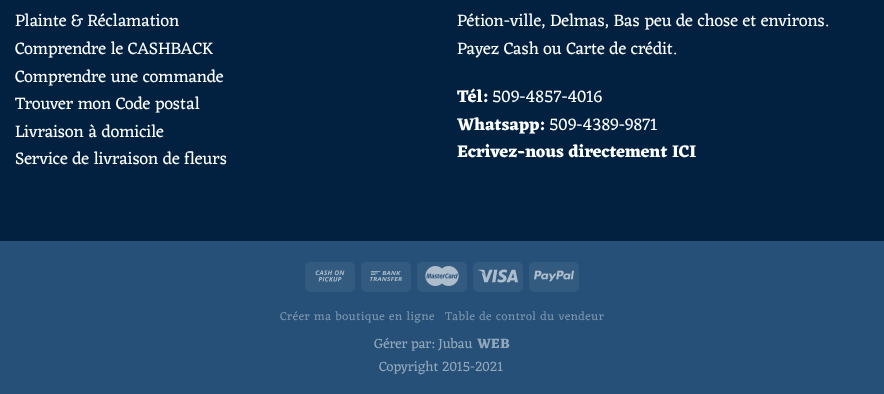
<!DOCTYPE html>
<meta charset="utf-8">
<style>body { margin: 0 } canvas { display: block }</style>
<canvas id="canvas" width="884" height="394"></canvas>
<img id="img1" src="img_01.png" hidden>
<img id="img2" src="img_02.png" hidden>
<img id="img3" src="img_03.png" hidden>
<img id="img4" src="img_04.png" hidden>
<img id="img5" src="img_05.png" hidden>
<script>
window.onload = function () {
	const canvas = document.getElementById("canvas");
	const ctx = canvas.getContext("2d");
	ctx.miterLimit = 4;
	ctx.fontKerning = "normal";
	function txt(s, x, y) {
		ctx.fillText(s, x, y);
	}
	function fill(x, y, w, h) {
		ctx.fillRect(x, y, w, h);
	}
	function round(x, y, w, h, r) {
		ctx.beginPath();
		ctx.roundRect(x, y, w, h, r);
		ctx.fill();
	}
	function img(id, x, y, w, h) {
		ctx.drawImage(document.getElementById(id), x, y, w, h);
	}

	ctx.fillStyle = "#022140";
	fill(0, 0, 884, 394);
	ctx.fillStyle = "#265077";
	fill(0, 241, 884, 153);
	ctx.fillStyle = "#335B7F";
	round(305, 262, 50, 30, 5);
	img("img1", 315, 270, 30, 12);
	round(361, 262, 50, 30, 5);
	img("img2", 370, 271, 32, 10);
	round(417, 262, 50, 30, 5);
	img("img3", 425, 266, 34, 20);
	round(473, 262, 50, 30, 5);
	img("img4", 478, 269, 40, 14);
	round(529, 262, 50, 30, 5);
	img("img5", 534, 270, 40, 12);
	ctx.font = "17.25px Eczar";
	ctx.fillStyle = "#FFFFFF";
	txt("Plainte & Réclamation", 15, 26);
	txt("Comprendre le CASHBACK", 15, 54);
	txt("Comprendre une commande", 15, 82);
	txt("Trouver mon Code postal", 15, 109);
	txt("Livraison à domicile", 15, 137);
	txt("Service de livraison de fleurs", 15, 164);
	txt("Pétion-ville, Delmas, Bas peu de chose et environs.", 457, 26);
	txt("Payez Cash ou Carte de crédit.", 457, 54);
	ctx.font = "bold 17.25px Eczar";
	txt("Tél:", 457, 102);
	ctx.font = "17.25px Eczar";
	txt("509-4857-4016", 492, 102);
	ctx.font = "bold 17.25px Eczar";
	txt("Whatsapp:", 457, 130);
	ctx.font = "17.25px Eczar";
	txt("509-4389-9871", 549, 130);
	ctx.font = "bold 17.25px Eczar";
	txt("Ecrivez-nous directement ICI", 457, 157);
	ctx.letterSpacing = "0.6px";
	ctx.font = "12px Eczar";
	ctx.fillStyle = "#7D96AE";
	txt("Créer ma boutique en ligne", 280, 320);
	txt("Table de control du vendeur", 445, 320);
	ctx.letterSpacing = "0px";
	ctx.font = "14px Eczar";
	ctx.fillStyle = "#93A8BB";
	txt("Gérer par: Jubau", 374, 348);
	ctx.font = "bold 14px Eczar";
	txt("WEB", 477, 348);
	ctx.font = "14px Eczar";
	txt("Copyright 2015-2021", 379, 371);
};
</script>
